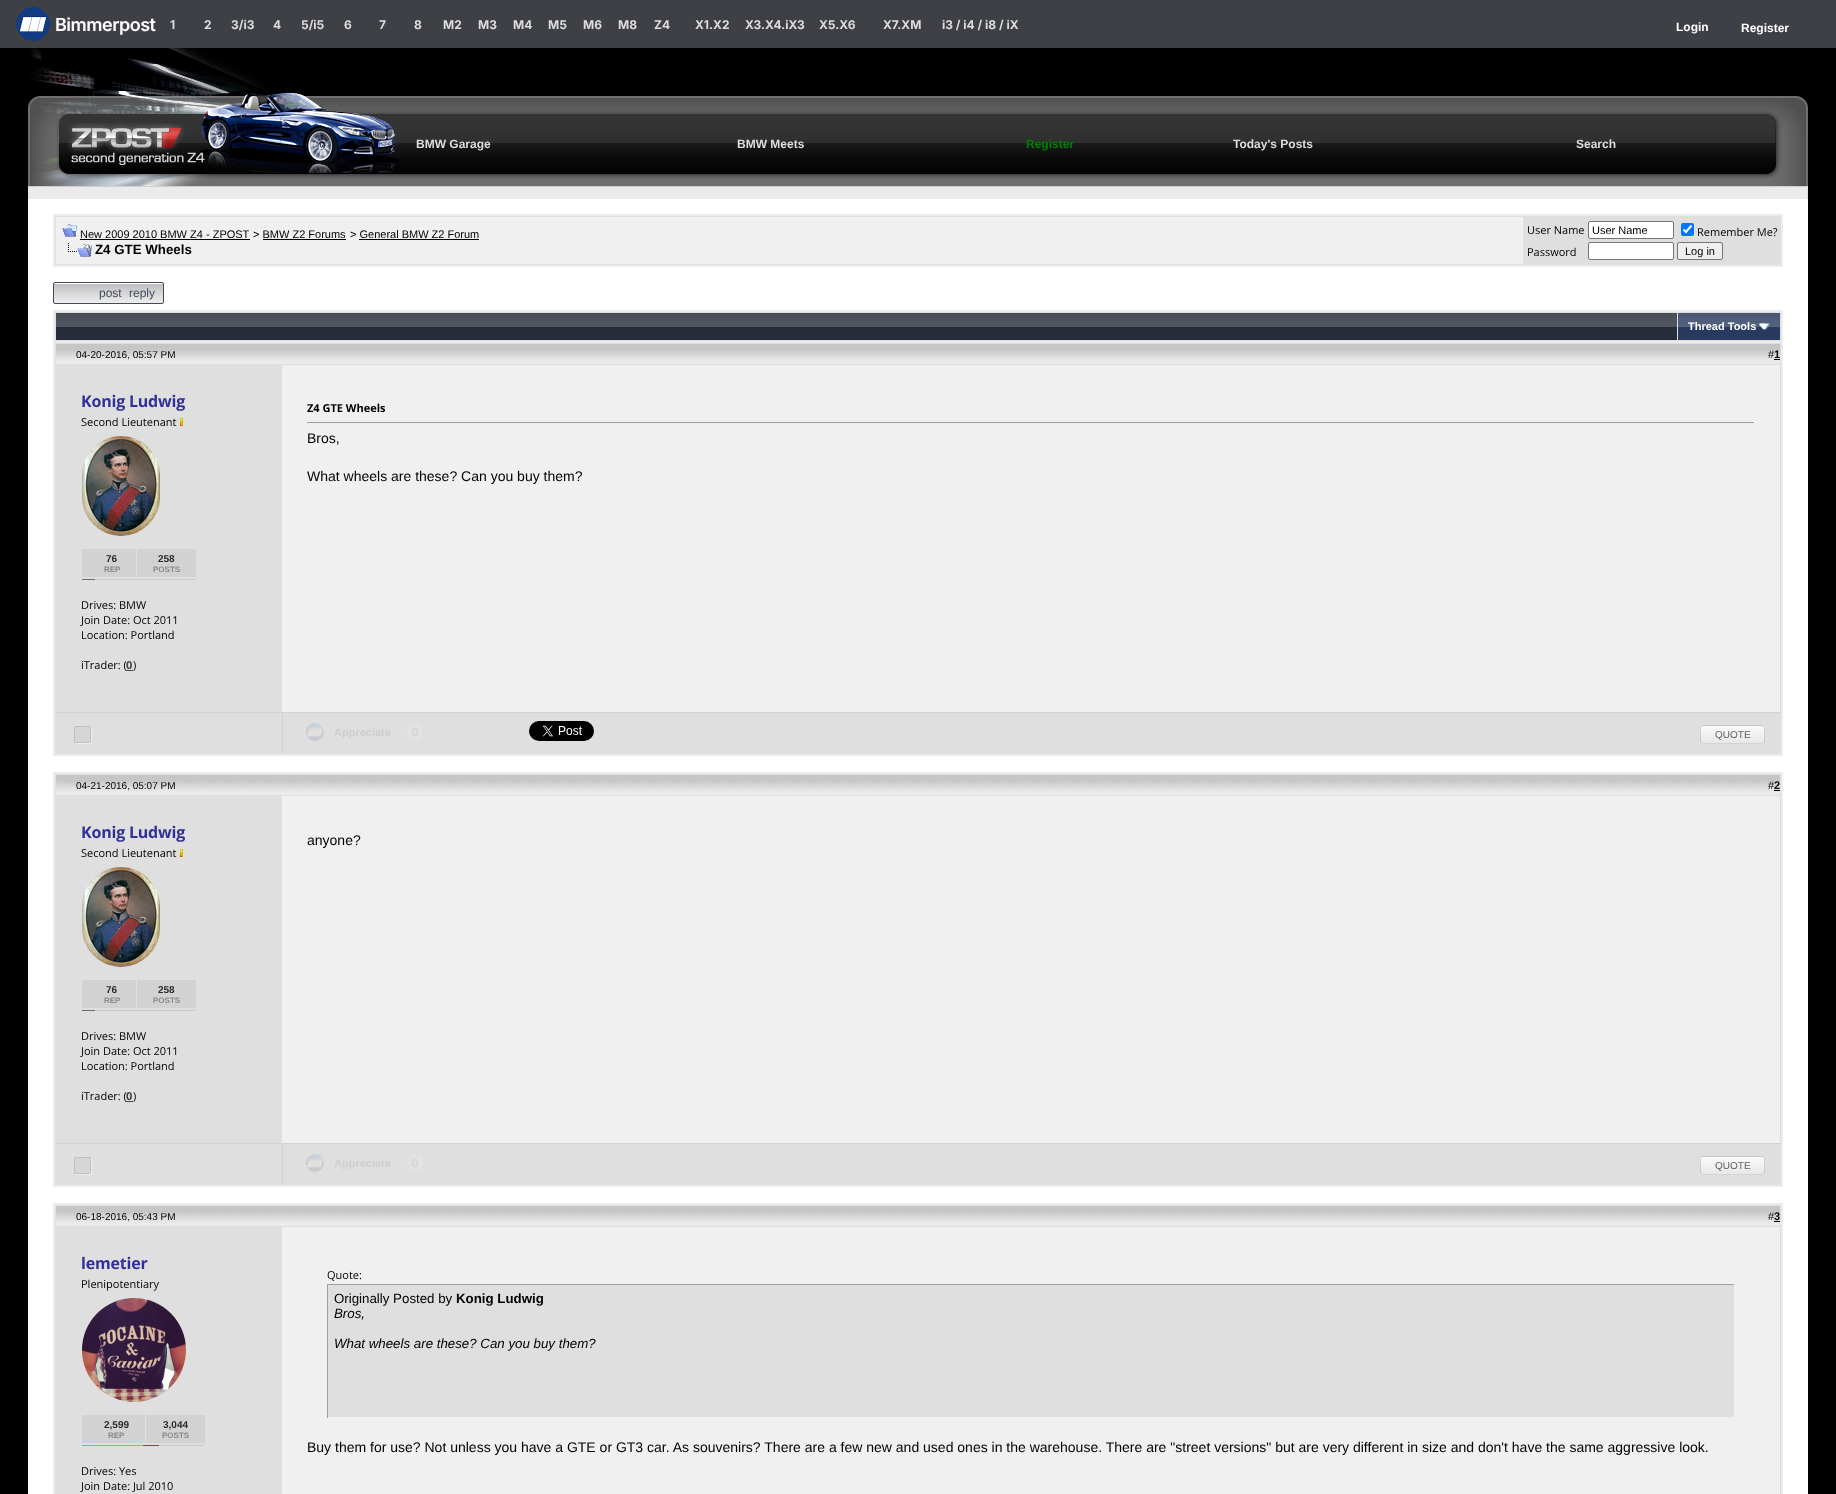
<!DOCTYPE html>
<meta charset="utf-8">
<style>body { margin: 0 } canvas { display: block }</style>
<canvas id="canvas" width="1836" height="1494"></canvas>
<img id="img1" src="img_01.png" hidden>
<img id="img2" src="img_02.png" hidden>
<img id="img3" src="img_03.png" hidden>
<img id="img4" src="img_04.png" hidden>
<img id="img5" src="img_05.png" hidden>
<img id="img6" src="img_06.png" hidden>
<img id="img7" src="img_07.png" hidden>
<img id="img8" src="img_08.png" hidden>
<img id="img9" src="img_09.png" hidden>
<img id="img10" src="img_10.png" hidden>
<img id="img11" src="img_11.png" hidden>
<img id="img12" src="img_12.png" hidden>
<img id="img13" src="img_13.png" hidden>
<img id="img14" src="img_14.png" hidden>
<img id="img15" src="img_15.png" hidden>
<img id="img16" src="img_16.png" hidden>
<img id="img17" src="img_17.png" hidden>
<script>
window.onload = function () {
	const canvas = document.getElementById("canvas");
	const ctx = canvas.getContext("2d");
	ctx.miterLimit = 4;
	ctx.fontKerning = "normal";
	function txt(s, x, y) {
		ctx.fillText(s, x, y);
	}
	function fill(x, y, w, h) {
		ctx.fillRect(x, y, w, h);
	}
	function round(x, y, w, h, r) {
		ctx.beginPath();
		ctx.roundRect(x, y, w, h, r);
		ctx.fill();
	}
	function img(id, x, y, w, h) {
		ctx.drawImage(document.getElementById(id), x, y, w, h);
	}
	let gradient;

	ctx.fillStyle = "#000000";
	fill(0, 0, 1836, 1494);
	ctx.fillStyle = "#3E4046";
	fill(0, 0, 1836, 48);
	img("img1", 16, 7, 34, 34);
	ctx.beginPath();
	ctx.roundRect(1663.5, 13.5, 58, 27, 13.5);
	ctx.strokeStyle = "#3C414F";
	ctx.stroke();
	ctx.beginPath();
	ctx.roundRect(1728.5, 13.5, 73, 28, 13.5);
	ctx.stroke();
	img("img2", 28, 48, 388, 151);
	img("img3", 416, 96, 1332, 103);
	img("img4", 1748, 96, 60, 103);
	ctx.fillStyle = "#FFFFFF";
	fill(28, 199, 1780, 1295);
	ctx.fillStyle = "#DFDFDF";
	ctx.beginPath();
	ctx.rect(54, 215, 1728, 51);
	ctx.fill();
	ctx.strokeStyle = "#ECECEC";
	ctx.lineWidth = 2;
	ctx.stroke();
	ctx.fillStyle = "#F0F0F0";
	fill(56, 217, 1467, 47);
	img("img5", 62, 224, 15, 13);
	ctx.fillStyle = "#000000";
	fill(80, 239, 170, 1);
	fill(263, 239, 83, 1);
	fill(359, 239, 120, 1);
	img("img6", 68, 243, 24, 14);
	ctx.fillStyle = "#FFFFFF";
	ctx.beginPath();
	ctx.roundRect(1588.5, 221.5, 85, 17, 1.5);
	ctx.fill();
	ctx.strokeStyle = "#767676";
	ctx.lineWidth = 1;
	ctx.stroke();
	ctx.fillStyle = "#0075FF";
	round(1681, 223, 13, 13, 2);
	ctx.beginPath();
	ctx.moveTo(1683.5, 229.5);
	ctx.lineTo(1686, 232);
	ctx.lineTo(1691.5, 225.5);
	ctx.strokeStyle = "#FFFFFF";
	ctx.lineWidth = 2.1;
	ctx.stroke();
	ctx.fillStyle = "#FFFFFF";
	ctx.beginPath();
	ctx.roundRect(1588.5, 242.5, 85, 17, 1.5);
	ctx.fill();
	ctx.strokeStyle = "#767676";
	ctx.lineWidth = 1;
	ctx.stroke();
	ctx.fillStyle = "#EFEFEF";
	ctx.beginPath();
	ctx.roundRect(1677.5, 242.5, 45, 17, 1.5);
	ctx.fill();
	ctx.stroke();
	ctx.save();
	ctx.beginPath();
	ctx.roundRect(53, 282, 111, 22, 2);
	ctx.clip();
	gradient = ctx.createLinearGradient(109, 283, 109, 303);
	gradient.addColorStop(0, "#BDBDBD");
	gradient.addColorStop(1, "#EFEEEE");
	ctx.fillStyle = gradient;
	fill(53, 283, 111, 20);
	ctx.restore();
	ctx.fillStyle = "#FFFFFF";
	ctx.beginPath();
	ctx.moveTo(55, 284);
	ctx.lineTo(163, 284);
	ctx.lineTo(163, 285);
	ctx.lineTo(162, 283);
	ctx.lineTo(73, 283);
	ctx.bezierCurveTo(69, 283, 54, 278, 54, 285);
	ctx.bezierCurveTo(54, 284, 54, 284, 55, 284);
	ctx.closePath();
	ctx.fill();
	ctx.beginPath();
	ctx.roundRect(53.5, 282.5, 110, 21, 1.5);
	ctx.strokeStyle = "#444C5A";
	ctx.stroke();
	ctx.fillStyle = "#DFDFDF";
	fill(55, 312, 1726, 29);
	ctx.fillStyle = "#ECECEC";
	fill(53, 310, 1730, 2);
	fill(1781, 310, 2, 31);
	fill(53, 310, 2, 31);
	ctx.fillStyle = "#262C39";
	fill(56, 327, 1621, 13);
	img("img7", 56, 313, 1621, 14);
	ctx.fillStyle = "#293A5F";
	fill(1678, 327, 102, 13);
	img("img8", 1678, 313, 102, 14);
	img("img9", 1759, 323, 11, 7);
	ctx.fillStyle = "#DFDFDF";
	fill(55, 365, 1726, 389);
	ctx.strokeStyle = "#ECECEC";
	ctx.lineWidth = 2;
	ctx.strokeRect(54, 342, 1728, 413);
	img("img10", 56, 344, 226, 20);
	fill(55, 343, 1726, 1);
	fill(55, 364, 227, 1);
	fill(55, 343, 1, 22);
	img("img11", 282, 344, 1498, 20);
	fill(1780, 343, 1, 22);
	fill(282, 364, 1499, 1);
	ctx.fillStyle = "#000000";
	fill(1774, 359, 6, 1);
	img("img12", 180, 418, 3, 8);
	img("img13", 82, 436, 78, 100);
	ctx.fillStyle = "#D2D2D2";
	fill(82, 549, 54, 28);
	fill(137, 549, 59, 28);
	ctx.fillStyle = "#C9C9C9";
	fill(95, 579, 100, 1);
	ctx.fillStyle = "#6F6F6F";
	fill(82, 579, 13, 1);
	ctx.fillStyle = "#F0F0F0";
	fill(282, 365, 1498, 347);
	ctx.fillStyle = "#9F9F9F";
	fill(307, 422, 1448, 1);
	ctx.fillStyle = "#EEEEEE";
	fill(1754, 422, 1, 1);
	ctx.fillStyle = "#D2D2D2";
	ctx.beginPath();
	ctx.moveTo(55, 712);
	ctx.lineTo(282, 712);
	ctx.lineTo(281, 713);
	ctx.lineTo(56, 713);
	ctx.closePath();
	ctx.fill();
	ctx.fillStyle = "#DFDFDF";
	ctx.beginPath();
	ctx.moveTo(282, 712);
	ctx.lineTo(282, 754);
	ctx.lineTo(281, 753);
	ctx.lineTo(281, 713);
	ctx.closePath();
	ctx.fill();
	ctx.beginPath();
	ctx.moveTo(55, 754);
	ctx.lineTo(55, 712);
	ctx.lineTo(56, 713);
	ctx.lineTo(56, 753);
	ctx.closePath();
	ctx.fill();
	ctx.fillStyle = "#EDEDED";
	ctx.beginPath();
	ctx.moveTo(75, 743);
	ctx.bezierCurveTo(75.5, 743.5, 76, 744, 77, 744);
	ctx.lineTo(90, 744);
	ctx.bezierCurveTo(91, 744, 92, 743, 92, 742);
	ctx.lineTo(92, 729);
	ctx.bezierCurveTo(92, 728, 91.5, 727.5, 91, 727);
	ctx.lineTo(91, 734.5);
	ctx.bezierCurveTo(91, 743, 92.5, 743, 84.5, 743);
	ctx.closePath();
	ctx.fill();
	ctx.fillStyle = "rgba(0, 0, 0, 0.04)";
	fill(74, 726, 17, 17);
	ctx.beginPath();
	ctx.roundRect(74.5, 726.5, 16, 16, 1.5);
	ctx.strokeStyle = "rgba(0, 0, 0, 0.1)";
	ctx.lineWidth = 1;
	ctx.stroke();
	ctx.fillStyle = "#D2D2D2";
	ctx.beginPath();
	ctx.moveTo(282, 712);
	ctx.lineTo(1781, 712);
	ctx.lineTo(1780, 713);
	ctx.lineTo(283, 713);
	ctx.closePath();
	ctx.fill();
	ctx.fillStyle = "#DFDFDF";
	ctx.beginPath();
	ctx.moveTo(1781, 712);
	ctx.lineTo(1781, 754);
	ctx.lineTo(1780, 753);
	ctx.lineTo(1780, 713);
	ctx.closePath();
	ctx.fill();
	ctx.fillStyle = "rgba(0, 0, 0, 0.06)";
	ctx.beginPath();
	ctx.moveTo(282, 754);
	ctx.lineTo(282, 712);
	ctx.lineTo(283, 713);
	ctx.lineTo(283, 753);
	ctx.closePath();
	ctx.fill();
	img("img14", 306, 723, 18, 18);
	ctx.fillStyle = "#E2E2E2";
	ctx.beginPath();
	ctx.roundRect(407.5, 722.5, 16, 19, 2.5);
	ctx.fill();
	ctx.strokeStyle = "#DDDDDD";
	ctx.stroke();
	ctx.beginPath();
	ctx.moveTo(408, 729);
	ctx.lineTo(408, 735);
	ctx.lineTo(405, 732);
	ctx.closePath();
	ctx.fill();
	img("img15", 529, 721, 65, 20);
	ctx.save();
	ctx.beginPath();
	ctx.roundRect(1700, 725, 65, 19, 3);
	ctx.clip();
	gradient = ctx.createLinearGradient(1733, 709, 1733, 726);
	gradient.addColorStop(0, "#FAFAFA");
	gradient.addColorStop(1, "#E8E8E8");
	ctx.fillStyle = gradient;
	fill(1700, 725, 65, 1);
	gradient = ctx.createLinearGradient(1733, 726, 1733, 743);
	gradient.addColorStop(0, "#FAFAFA");
	gradient.addColorStop(1, "#E8E8E8");
	ctx.fillStyle = gradient;
	fill(1700, 726, 65, 17);
	gradient = ctx.createLinearGradient(1733, 743, 1733, 760);
	gradient.addColorStop(0, "#FAFAFA");
	gradient.addColorStop(1, "#E8E8E8");
	ctx.fillStyle = gradient;
	fill(1700, 743, 65, 1);
	ctx.restore();
	ctx.beginPath();
	ctx.roundRect(1700.5, 725.5, 64, 18, 2.5);
	ctx.strokeStyle = "rgba(0, 0, 0, 0.15)";
	ctx.stroke();
	ctx.fillStyle = "#DFDFDF";
	fill(55, 796, 1726, 389);
	ctx.strokeStyle = "#ECECEC";
	ctx.lineWidth = 2;
	ctx.strokeRect(54, 773, 1728, 413);
	img("img10", 56, 775, 226, 20);
	fill(55, 774, 1726, 1);
	fill(55, 795, 227, 1);
	fill(55, 774, 1, 22);
	img("img11", 282, 775, 1498, 20);
	fill(1780, 774, 1, 22);
	fill(282, 795, 1499, 1);
	ctx.fillStyle = "#000000";
	fill(1774, 790, 6, 1);
	img("img12", 180, 849, 3, 8);
	img("img16", 82, 867, 78, 100);
	ctx.fillStyle = "#D2D2D2";
	fill(82, 980, 54, 28);
	fill(137, 980, 59, 28);
	ctx.fillStyle = "#C9C9C9";
	fill(95, 1010, 100, 1);
	ctx.fillStyle = "#6F6F6F";
	fill(82, 1010, 13, 1);
	ctx.fillStyle = "#F0F0F0";
	fill(282, 796, 1498, 347);
	ctx.fillStyle = "#D2D2D2";
	ctx.beginPath();
	ctx.moveTo(55, 1143);
	ctx.lineTo(282, 1143);
	ctx.lineTo(281, 1144);
	ctx.lineTo(56, 1144);
	ctx.closePath();
	ctx.fill();
	ctx.fillStyle = "#DFDFDF";
	ctx.beginPath();
	ctx.moveTo(282, 1143);
	ctx.lineTo(282, 1185);
	ctx.lineTo(281, 1184);
	ctx.lineTo(281, 1144);
	ctx.closePath();
	ctx.fill();
	ctx.beginPath();
	ctx.moveTo(55, 1185);
	ctx.lineTo(55, 1143);
	ctx.lineTo(56, 1144);
	ctx.lineTo(56, 1184);
	ctx.closePath();
	ctx.fill();
	ctx.fillStyle = "#EDEDED";
	ctx.beginPath();
	ctx.moveTo(75, 1174);
	ctx.bezierCurveTo(75.5, 1174.5, 76, 1175, 77, 1175);
	ctx.lineTo(90, 1175);
	ctx.bezierCurveTo(91, 1175, 92, 1174, 92, 1173);
	ctx.lineTo(92, 1160);
	ctx.bezierCurveTo(92, 1159, 91.5, 1158.5, 91, 1158);
	ctx.lineTo(91, 1165.5);
	ctx.bezierCurveTo(91, 1174, 92.5, 1174, 84.5, 1174);
	ctx.closePath();
	ctx.fill();
	ctx.fillStyle = "rgba(0, 0, 0, 0.04)";
	fill(74, 1157, 17, 17);
	ctx.beginPath();
	ctx.roundRect(74.5, 1157.5, 16, 16, 1.5);
	ctx.strokeStyle = "rgba(0, 0, 0, 0.1)";
	ctx.lineWidth = 1;
	ctx.stroke();
	ctx.fillStyle = "#D2D2D2";
	ctx.beginPath();
	ctx.moveTo(282, 1143);
	ctx.lineTo(1781, 1143);
	ctx.lineTo(1780, 1144);
	ctx.lineTo(283, 1144);
	ctx.closePath();
	ctx.fill();
	ctx.fillStyle = "#DFDFDF";
	ctx.beginPath();
	ctx.moveTo(1781, 1143);
	ctx.lineTo(1781, 1185);
	ctx.lineTo(1780, 1184);
	ctx.lineTo(1780, 1144);
	ctx.closePath();
	ctx.fill();
	ctx.fillStyle = "rgba(0, 0, 0, 0.06)";
	ctx.beginPath();
	ctx.moveTo(282, 1185);
	ctx.lineTo(282, 1143);
	ctx.lineTo(283, 1144);
	ctx.lineTo(283, 1184);
	ctx.closePath();
	ctx.fill();
	img("img14", 306, 1154, 18, 18);
	ctx.fillStyle = "#E2E2E2";
	ctx.beginPath();
	ctx.roundRect(407.5, 1153.5, 16, 19, 2.5);
	ctx.fill();
	ctx.strokeStyle = "#DDDDDD";
	ctx.stroke();
	ctx.beginPath();
	ctx.moveTo(408, 1160);
	ctx.lineTo(408, 1166);
	ctx.lineTo(405, 1163);
	ctx.closePath();
	ctx.fill();
	ctx.save();
	ctx.beginPath();
	ctx.roundRect(1700, 1156, 65, 19, 3);
	ctx.clip();
	gradient = ctx.createLinearGradient(1733, 1140, 1733, 1157);
	gradient.addColorStop(0, "#FAFAFA");
	gradient.addColorStop(1, "#E8E8E8");
	ctx.fillStyle = gradient;
	fill(1700, 1156, 65, 1);
	gradient = ctx.createLinearGradient(1733, 1157, 1733, 1174);
	gradient.addColorStop(0, "#FAFAFA");
	gradient.addColorStop(1, "#E8E8E8");
	ctx.fillStyle = gradient;
	fill(1700, 1157, 65, 17);
	gradient = ctx.createLinearGradient(1733, 1174, 1733, 1191);
	gradient.addColorStop(0, "#FAFAFA");
	gradient.addColorStop(1, "#E8E8E8");
	ctx.fillStyle = gradient;
	fill(1700, 1174, 65, 1);
	ctx.restore();
	ctx.beginPath();
	ctx.roundRect(1700.5, 1156.5, 64, 18, 2.5);
	ctx.strokeStyle = "rgba(0, 0, 0, 0.15)";
	ctx.stroke();
	ctx.fillStyle = "#DFDFDF";
	fill(55, 1227, 227, 267);
	ctx.strokeStyle = "#ECECEC";
	ctx.lineWidth = 2;
	ctx.strokeRect(54, 1204, 1728, 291);
	img("img10", 56, 1206, 226, 20);
	fill(55, 1205, 1726, 1);
	fill(55, 1226, 227, 1);
	fill(55, 1205, 1, 22);
	img("img11", 282, 1206, 1498, 20);
	fill(1780, 1205, 1, 289);
	fill(282, 1226, 1499, 1);
	ctx.fillStyle = "#000000";
	fill(1774, 1221, 6, 1);
	img("img17", 82, 1298, 104, 104);
	ctx.fillStyle = "#D2D2D2";
	fill(82, 1415, 63, 28);
	fill(146, 1415, 59, 28);
	ctx.fillStyle = "#C9C9C9";
	fill(159, 1445, 45, 1);
	ctx.fillStyle = "#1565CF";
	fill(143, 1445, 16, 1);
	ctx.fillStyle = "#77ACEA";
	fill(82, 1445, 61, 1);
	ctx.fillStyle = "#F0F0F0";
	fill(282, 1227, 1498, 267);
	ctx.fillStyle = "#DFDFDF";
	fill(328, 1285, 1406, 132);
	ctx.fillStyle = "#9F9F9F";
	fill(327, 1284, 1408, 1);
	ctx.fillStyle = "#EEEEEE";
	fill(1734, 1284, 1, 1);
	ctx.fillStyle = "#9F9F9F";
	fill(327, 1284, 1, 134);
	ctx.letterSpacing = "-0.5px";
	ctx.font = "600 18px Inter";
	ctx.fillStyle = "#FFFFFF";
	txt("Bimmerpost", 55, 31);
	ctx.letterSpacing = "0px";
	ctx.font = "bold 12px Inter";
	ctx.fillStyle = "#DDDDDD";
	txt("1", 170, 29);
	txt("2", 204, 29);
	txt("3/i3", 231, 29);
	txt("4", 273, 29);
	txt("5/i5", 301, 29);
	txt("6", 344, 29);
	txt("7", 379, 29);
	txt("8", 414, 29);
	txt("M2", 443, 29);
	txt("M3", 478, 29);
	txt("M4", 513, 29);
	txt("M5", 548, 29);
	txt("M6", 583, 29);
	txt("M8", 618, 29);
	txt("Z4", 654, 29);
	txt("X1.X2", 695, 29);
	txt("X3.X4.iX3", 745, 29);
	txt("X5.X6", 819, 29);
	txt("X7.XM", 883, 29);
	txt("i3 / i4 / i8 / iX", 942, 29);
	ctx.font = "bold 12px Liberation Sans";
	ctx.fillStyle = "#FFFFFF";
	txt("Login", 1676, 31);
	txt("Register", 1741, 32);
	ctx.fillStyle = "#DDDDDD";
	txt("BMW Garage", 416, 148);
	txt("BMW Meets", 737, 148);
	ctx.fillStyle = "#008000";
	txt("Register", 1026, 148);
	ctx.fillStyle = "#DDDDDD";
	txt("Today's Posts", 1233, 148);
	txt("Search", 1576, 148);
	ctx.font = "11px Liberation Sans";
	ctx.fillStyle = "#000000";
	txt("New 2009 2010 BMW Z4 - ZPOST", 80, 238);
	txt("> BMW Z2 Forums", 253, 238);
	txt("> General BMW Z2 Forum", 350, 238);
	ctx.font = "bold 13.3px Liberation Sans";
	txt("Z4 GTE Wheels", 95, 254);
	ctx.font = "11px Open Sans";
	txt("User Name", 1527, 234);
	ctx.font = "11px Liberation Sans";
	txt("User Name", 1592, 234);
	ctx.font = "11px Open Sans";
	txt("Remember Me?", 1697, 236);
	txt("Password", 1527, 256);
	ctx.font = "11px Liberation Sans";
	txt("Log in", 1685, 255);
	ctx.wordSpacing = "4px";
	ctx.font = "12px Liberation Sans";
	ctx.fillStyle = "#444C5A";
	txt("post reply", 99, 297);
	ctx.wordSpacing = "0px";
	ctx.font = "bold 11px Liberation Sans";
	ctx.fillStyle = "#FFFFFF";
	txt("Thread Tools", 1688, 330);
	ctx.font = "10px Liberation Sans";
	ctx.fillStyle = "#000000";
	txt("04-20-2016, 05:57 PM", 76, 358);
	ctx.font = "11px Liberation Sans";
	txt("#", 1768, 358);
	ctx.font = "bold 11px Liberation Sans";
	txt("1", 1774, 358);
	ctx.letterSpacing = "-0.2px";
	ctx.font = "bold 16px Open Sans";
	ctx.fillStyle = "#303096";
	txt("Konig Ludwig", 81, 407);
	ctx.letterSpacing = "0px";
	ctx.font = "11px Open Sans";
	ctx.fillStyle = "#000000";
	txt("Second Lieutenant", 81, 426);
	ctx.font = "bold 10px Liberation Sans";
	ctx.fillStyle = "#2A2A2A";
	txt("76", 106, 562);
	ctx.font = "bold 8px Liberation Sans";
	ctx.fillStyle = "#898989";
	txt("REP", 104, 572);
	ctx.font = "bold 10px Liberation Sans";
	ctx.fillStyle = "#2A2A2A";
	txt("258", 158, 562);
	ctx.font = "bold 8px Liberation Sans";
	ctx.fillStyle = "#898989";
	txt("POSTS", 153, 572);
	ctx.font = "11px Open Sans";
	ctx.fillStyle = "#000000";
	txt("Drives: BMW", 81, 609);
	txt("Join Date: Oct 2011", 81, 624);
	txt("Location: Portland", 81, 639);
	txt("iTrader: (", 81, 669);
	ctx.font = "bold 11px Open Sans";
	ctx.fillStyle = "#444444";
	txt("0", 126, 669);
	fill(126, 670, 7, 1);
	ctx.font = "11px Open Sans";
	ctx.fillStyle = "#000000";
	txt(")", 133, 669);
	ctx.font = "bold 11px Open Sans";
	txt("Z4 GTE Wheels", 307, 412);
	ctx.font = "14px Liberation Sans";
	txt("Bros,", 307, 443);
	txt("What wheels are these? Can you buy them?", 307, 481);
	ctx.font = "bold 11px Liberation Sans";
	ctx.fillStyle = "#CECECE";
	txt("Appreciate", 334, 736);
	ctx.font = "11px Liberation Sans";
	txt("0", 412, 736);
	ctx.font = "10px Liberation Sans";
	ctx.fillStyle = "#606060";
	txt("QUOTE", 1715, 738);
	ctx.fillStyle = "#000000";
	txt("04-21-2016, 05:07 PM", 76, 789);
	ctx.font = "11px Liberation Sans";
	txt("#", 1768, 789);
	ctx.font = "bold 11px Liberation Sans";
	txt("2", 1774, 789);
	ctx.letterSpacing = "-0.2px";
	ctx.font = "bold 16px Open Sans";
	ctx.fillStyle = "#303096";
	txt("Konig Ludwig", 81, 838);
	ctx.letterSpacing = "0px";
	ctx.font = "11px Open Sans";
	ctx.fillStyle = "#000000";
	txt("Second Lieutenant", 81, 857);
	ctx.font = "bold 10px Liberation Sans";
	ctx.fillStyle = "#2A2A2A";
	txt("76", 106, 993);
	ctx.font = "bold 8px Liberation Sans";
	ctx.fillStyle = "#898989";
	txt("REP", 104, 1003);
	ctx.font = "bold 10px Liberation Sans";
	ctx.fillStyle = "#2A2A2A";
	txt("258", 158, 993);
	ctx.font = "bold 8px Liberation Sans";
	ctx.fillStyle = "#898989";
	txt("POSTS", 153, 1003);
	ctx.font = "11px Open Sans";
	ctx.fillStyle = "#000000";
	txt("Drives: BMW", 81, 1040);
	txt("Join Date: Oct 2011", 81, 1055);
	txt("Location: Portland", 81, 1070);
	txt("iTrader: (", 81, 1100);
	ctx.font = "bold 11px Open Sans";
	ctx.fillStyle = "#444444";
	txt("0", 126, 1100);
	fill(126, 1101, 7, 1);
	ctx.font = "11px Open Sans";
	ctx.fillStyle = "#000000";
	txt(")", 133, 1100);
	ctx.font = "14px Liberation Sans";
	txt("anyone?", 307, 845);
	ctx.font = "bold 11px Liberation Sans";
	ctx.fillStyle = "#CECECE";
	txt("Appreciate", 334, 1167);
	ctx.font = "11px Liberation Sans";
	txt("0", 412, 1167);
	ctx.font = "10px Liberation Sans";
	ctx.fillStyle = "#606060";
	txt("QUOTE", 1715, 1169);
	ctx.fillStyle = "#000000";
	txt("06-18-2016, 05:43 PM", 76, 1220);
	ctx.font = "11px Liberation Sans";
	txt("#", 1768, 1220);
	ctx.font = "bold 11px Liberation Sans";
	txt("3", 1774, 1220);
	ctx.letterSpacing = "-0.2px";
	ctx.font = "bold 16px Open Sans";
	ctx.fillStyle = "#303096";
	txt("lemetier", 81, 1269);
	ctx.letterSpacing = "0px";
	ctx.font = "11px Open Sans";
	ctx.fillStyle = "#000000";
	txt("Plenipotentiary", 81, 1288);
	ctx.font = "bold 10px Liberation Sans";
	ctx.fillStyle = "#2A2A2A";
	txt("2,599", 104, 1428);
	ctx.font = "bold 8px Liberation Sans";
	ctx.fillStyle = "#898989";
	txt("REP", 108, 1438);
	ctx.font = "bold 10px Liberation Sans";
	ctx.fillStyle = "#2A2A2A";
	txt("3,044", 163, 1428);
	ctx.font = "bold 8px Liberation Sans";
	ctx.fillStyle = "#898989";
	txt("POSTS", 162, 1438);
	ctx.font = "11px Open Sans";
	ctx.fillStyle = "#000000";
	txt("Drives: Yes", 81, 1475);
	txt("Join Date: Jul 2010", 81, 1490);
	txt("Quote:", 327, 1279);
	ctx.font = "13.3px Liberation Sans";
	txt("Originally Posted by", 334, 1303);
	ctx.font = "bold 13.3px Liberation Sans";
	txt("Konig Ludwig", 456, 1303);
	ctx.font = "italic 13.3px Liberation Sans";
	txt("Bros,", 334, 1318);
	txt("What wheels are these? Can you buy them?", 334, 1348);
	ctx.font = "14px Liberation Sans";
	txt("Buy them for use? Not unless you have a GTE or GT3 car. As souvenirs? There are a few new and used ones in the warehouse. There are \"street versions\" but are very different in size and don't have the same aggressive look.", 307, 1452);
};
</script>
